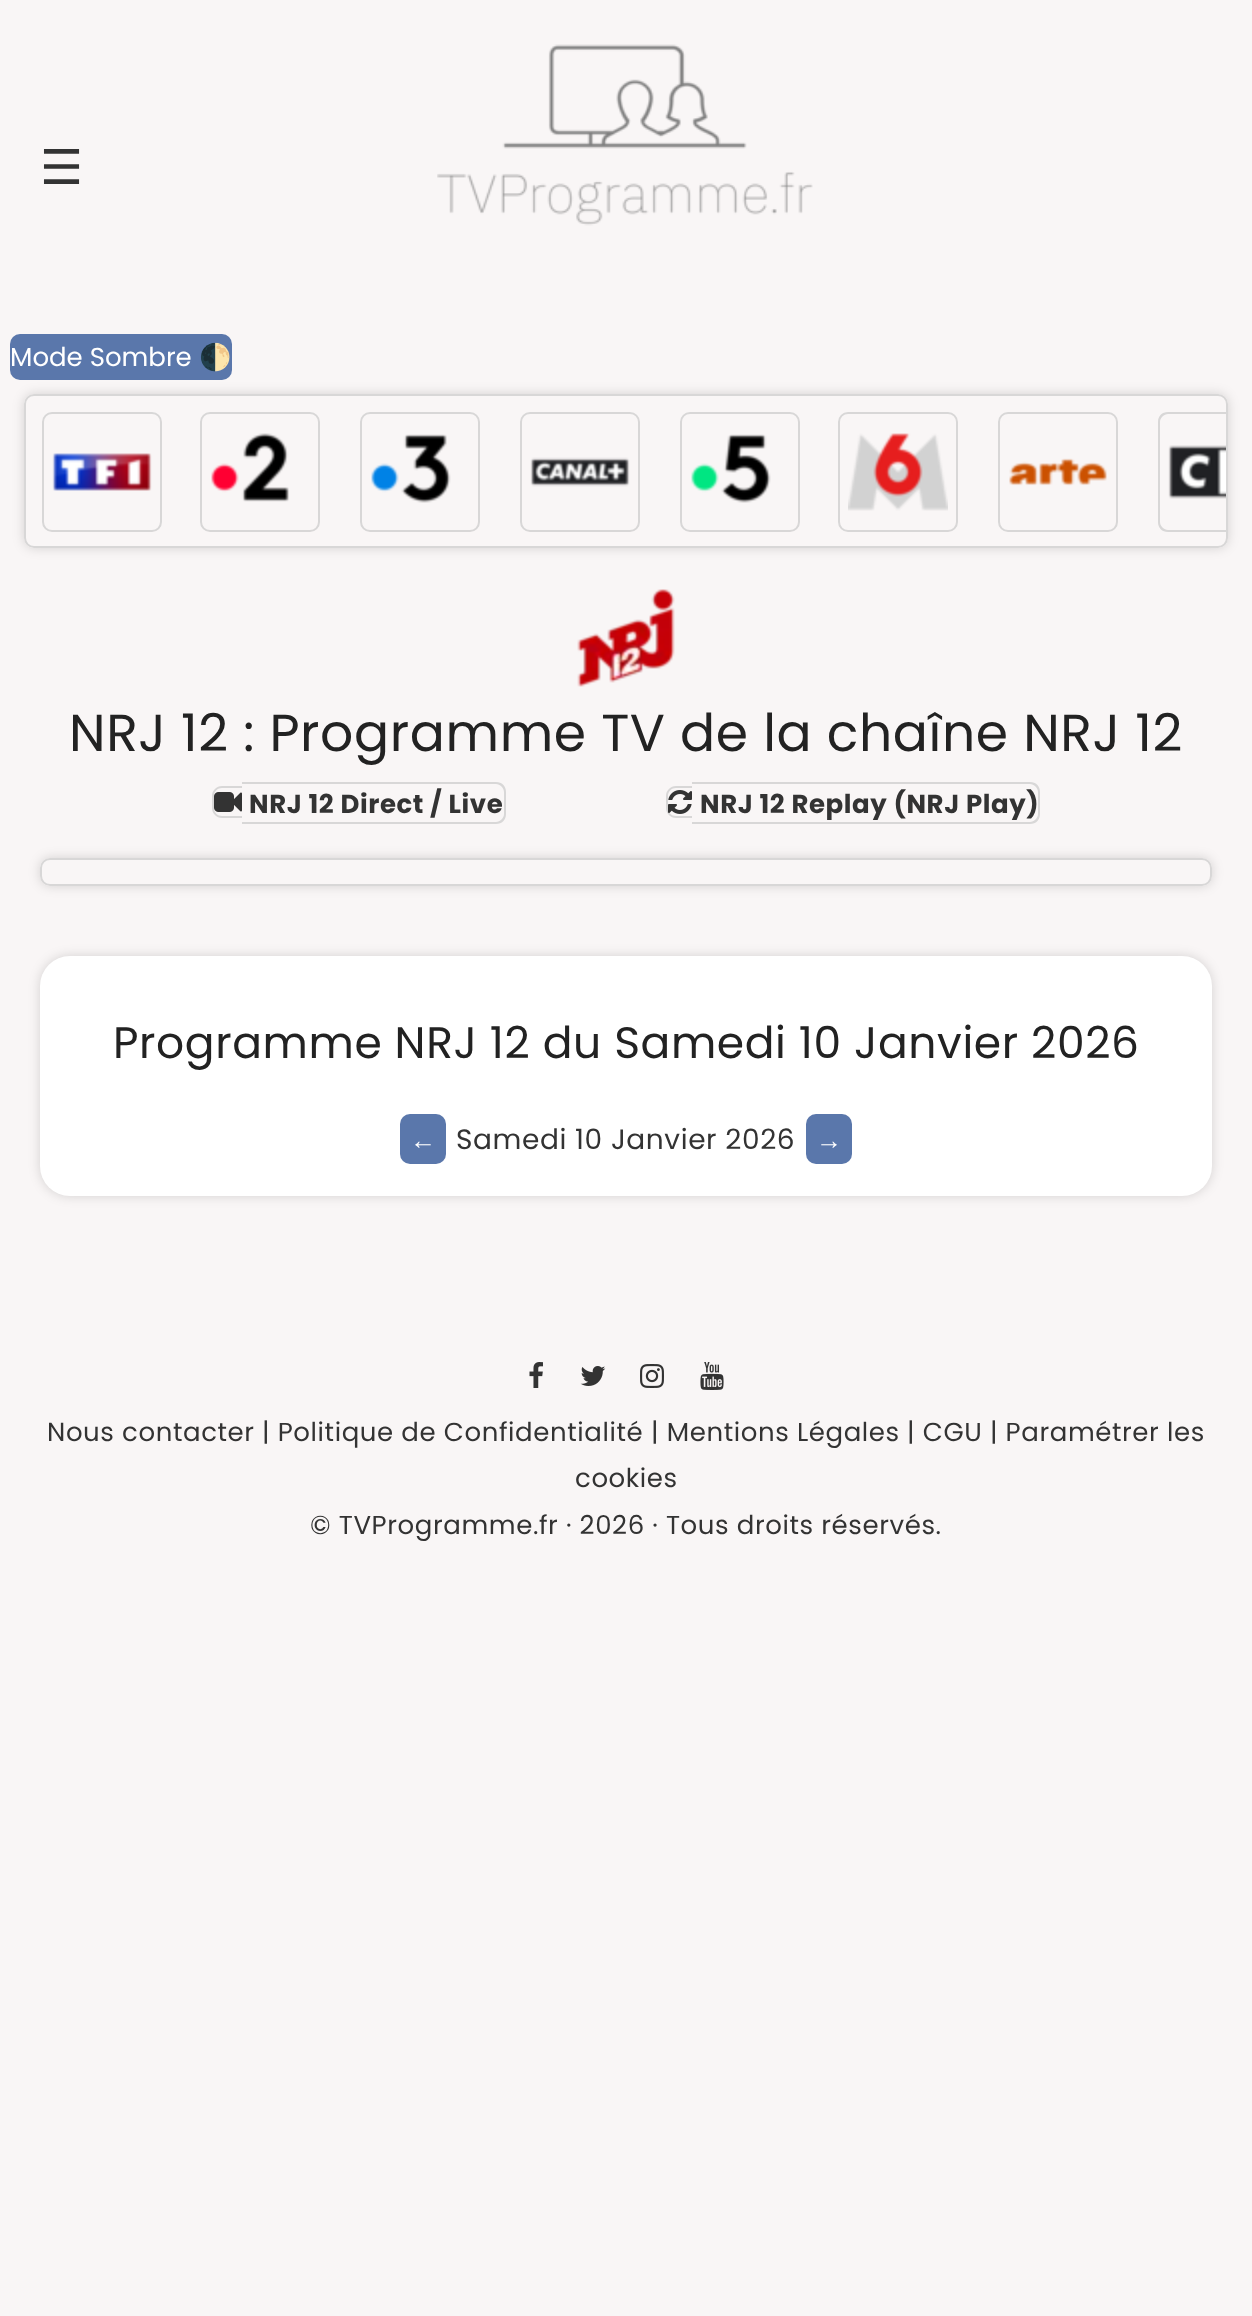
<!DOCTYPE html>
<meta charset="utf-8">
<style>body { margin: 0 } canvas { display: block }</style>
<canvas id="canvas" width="1252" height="2316"></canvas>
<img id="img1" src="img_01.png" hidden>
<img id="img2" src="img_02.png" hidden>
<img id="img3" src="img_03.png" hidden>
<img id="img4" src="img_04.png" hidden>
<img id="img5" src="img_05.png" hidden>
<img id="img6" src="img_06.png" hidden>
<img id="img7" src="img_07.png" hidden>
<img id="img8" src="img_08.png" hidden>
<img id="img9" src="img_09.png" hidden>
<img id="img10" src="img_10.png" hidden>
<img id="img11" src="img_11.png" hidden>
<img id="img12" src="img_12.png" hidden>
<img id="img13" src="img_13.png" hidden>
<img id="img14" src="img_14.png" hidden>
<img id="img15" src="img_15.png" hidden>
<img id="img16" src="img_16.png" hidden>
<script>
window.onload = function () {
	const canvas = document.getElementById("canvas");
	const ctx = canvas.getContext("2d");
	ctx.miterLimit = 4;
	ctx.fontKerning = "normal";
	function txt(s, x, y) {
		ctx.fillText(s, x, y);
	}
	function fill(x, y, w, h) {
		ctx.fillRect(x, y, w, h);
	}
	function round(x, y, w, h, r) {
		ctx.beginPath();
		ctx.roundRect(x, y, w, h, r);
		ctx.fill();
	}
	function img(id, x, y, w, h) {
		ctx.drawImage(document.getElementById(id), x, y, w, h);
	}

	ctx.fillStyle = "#F9F6F6";
	fill(0, 0, 1252, 2316);
	img("img1", 437, 44, 376, 182);
	ctx.fillStyle = "#5A77AB";
	round(10, 334, 222, 46, 10);
	ctx.save();
	ctx.beginPath();
	ctx.moveTo(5, 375);
	ctx.lineTo(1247, 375);
	ctx.lineTo(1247, 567);
	ctx.lineTo(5, 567);
	ctx.closePath();
	ctx.moveTo(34, 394);
	ctx.lineTo(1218, 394);
	ctx.bezierCurveTo(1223.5, 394, 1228, 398.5, 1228, 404);
	ctx.lineTo(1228, 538);
	ctx.bezierCurveTo(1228, 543.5, 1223.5, 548, 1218, 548);
	ctx.lineTo(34, 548);
	ctx.bezierCurveTo(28.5, 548, 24, 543.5, 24, 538);
	ctx.lineTo(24, 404);
	ctx.bezierCurveTo(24, 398.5, 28.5, 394, 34, 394);
	ctx.closePath();
	ctx.clip("evenodd");
	ctx.fillStyle = "rgba(0, 0, 0, 0.15)";
	ctx.filter = "blur(6px)";
	ctx.beginPath();
	ctx.roundRect(24, 394, 1204, 154, 10);
	ctx.fill();
	ctx.filter = "none";
	ctx.restore();
	ctx.beginPath();
	ctx.roundRect(25, 395, 1202, 152, 9);
	ctx.strokeStyle = "#D8D7D7";
	ctx.lineWidth = 2;
	ctx.stroke();
	ctx.beginPath();
	ctx.roundRect(43, 413, 118, 118, 9);
	ctx.stroke();
	img("img2", 52, 453, 100, 38);
	ctx.beginPath();
	ctx.roundRect(201, 413, 118, 118, 9);
	ctx.stroke();
	img("img3", 211, 433, 78, 69);
	ctx.beginPath();
	ctx.roundRect(361, 413, 118, 118, 9);
	ctx.stroke();
	img("img4", 371, 434, 80, 69);
	ctx.beginPath();
	ctx.roundRect(521, 413, 118, 118, 9);
	ctx.stroke();
	img("img5", 530, 457, 100, 30);
	ctx.beginPath();
	ctx.roundRect(681, 413, 118, 118, 9);
	ctx.stroke();
	img("img6", 691, 434, 80, 69);
	ctx.beginPath();
	ctx.roundRect(839, 413, 118, 118, 9);
	ctx.stroke();
	img("img7", 848, 433, 100, 78);
	ctx.beginPath();
	ctx.roundRect(999, 413, 118, 118, 9);
	ctx.stroke();
	img("img8", 1009, 458, 98, 28);
	ctx.fillStyle = "#D8D7D7";
	ctx.beginPath();
	ctx.moveTo(1168, 412);
	ctx.bezierCurveTo(1162, 412, 1158, 416, 1158, 422);
	ctx.lineTo(1158, 522);
	ctx.bezierCurveTo(1158, 528, 1162, 532, 1168, 532);
	ctx.lineTo(1226, 532);
	ctx.lineTo(1226, 530);
	ctx.lineTo(1168, 530);
	ctx.bezierCurveTo(1164, 530, 1160, 526, 1160, 522);
	ctx.lineTo(1160, 422);
	ctx.bezierCurveTo(1160, 418, 1164, 414, 1168, 414);
	ctx.lineTo(1226, 414);
	ctx.lineTo(1226, 412);
	ctx.closePath();
	ctx.fill();
	img("img9", 1168, 445, 58, 54);
	img("img10", 577, 589, 98, 98);
	ctx.beginPath();
	ctx.moveTo(222, 786);
	ctx.lineTo(242, 786);
	ctx.lineTo(242, 818);
	ctx.lineTo(222, 818);
	ctx.bezierCurveTo(216.5, 818, 212, 813.5, 212, 808);
	ctx.lineTo(212, 796);
	ctx.bezierCurveTo(212, 790.5, 216.5, 786, 222, 786);
	ctx.closePath();
	ctx.moveTo(222, 788);
	ctx.lineTo(242, 788);
	ctx.lineTo(242, 816);
	ctx.lineTo(222, 816);
	ctx.bezierCurveTo(217.5, 816, 214, 812.5, 214, 808);
	ctx.lineTo(214, 796);
	ctx.bezierCurveTo(214, 791.5, 217.5, 788, 222, 788);
	ctx.closePath();
	ctx.fill("evenodd");
	fill(242, 782, 8, 2);
	fill(242, 822, 8, 2);
	ctx.beginPath();
	ctx.moveTo(250, 782);
	ctx.lineTo(496, 782);
	ctx.bezierCurveTo(502, 782, 506, 786, 506, 792);
	ctx.lineTo(506, 814);
	ctx.bezierCurveTo(506, 820, 502, 824, 496, 824);
	ctx.lineTo(250, 824);
	ctx.closePath();
	ctx.moveTo(250, 784);
	ctx.lineTo(496, 784);
	ctx.bezierCurveTo(500, 784, 504, 788, 504, 792);
	ctx.lineTo(504, 814);
	ctx.bezierCurveTo(504, 818, 500, 822, 496, 822);
	ctx.lineTo(250, 822);
	ctx.closePath();
	ctx.fill("evenodd");
	img("img11", 214, 792, 28, 20);
	ctx.beginPath();
	ctx.moveTo(676, 786);
	ctx.lineTo(692, 786);
	ctx.lineTo(692, 818);
	ctx.lineTo(676, 818);
	ctx.bezierCurveTo(670.5, 818, 666, 813.5, 666, 808);
	ctx.lineTo(666, 796);
	ctx.bezierCurveTo(666, 790.5, 670.5, 786, 676, 786);
	ctx.closePath();
	ctx.moveTo(676, 788);
	ctx.lineTo(692, 788);
	ctx.lineTo(692, 816);
	ctx.lineTo(676, 816);
	ctx.bezierCurveTo(671.5, 816, 668, 812.5, 668, 808);
	ctx.lineTo(668, 796);
	ctx.bezierCurveTo(668, 791.5, 671.5, 788, 676, 788);
	ctx.closePath();
	ctx.fill("evenodd");
	fill(692, 782, 8, 2);
	fill(692, 822, 8, 2);
	ctx.beginPath();
	ctx.moveTo(700, 782);
	ctx.lineTo(1030, 782);
	ctx.bezierCurveTo(1036, 782, 1040, 786, 1040, 792);
	ctx.lineTo(1040, 814);
	ctx.bezierCurveTo(1040, 820, 1036, 824, 1030, 824);
	ctx.lineTo(700, 824);
	ctx.closePath();
	ctx.moveTo(700, 784);
	ctx.lineTo(1030, 784);
	ctx.bezierCurveTo(1034, 784, 1038, 788, 1038, 792);
	ctx.lineTo(1038, 814);
	ctx.bezierCurveTo(1038, 818, 1034, 822, 1030, 822);
	ctx.lineTo(700, 822);
	ctx.closePath();
	ctx.fill("evenodd");
	img("img12", 668, 790, 24, 24);
	ctx.save();
	ctx.beginPath();
	ctx.moveTo(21, 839);
	ctx.lineTo(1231, 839);
	ctx.lineTo(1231, 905);
	ctx.lineTo(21, 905);
	ctx.closePath();
	ctx.moveTo(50, 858);
	ctx.lineTo(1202, 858);
	ctx.bezierCurveTo(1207.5, 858, 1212, 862.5, 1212, 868);
	ctx.lineTo(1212, 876);
	ctx.bezierCurveTo(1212, 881.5, 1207.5, 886, 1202, 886);
	ctx.lineTo(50, 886);
	ctx.bezierCurveTo(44.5, 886, 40, 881.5, 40, 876);
	ctx.lineTo(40, 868);
	ctx.bezierCurveTo(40, 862.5, 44.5, 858, 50, 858);
	ctx.closePath();
	ctx.clip("evenodd");
	ctx.fillStyle = "rgba(0, 0, 0, 0.15)";
	ctx.filter = "blur(6px)";
	ctx.beginPath();
	ctx.roundRect(40, 858, 1172, 28, 10);
	ctx.fill();
	ctx.filter = "none";
	ctx.restore();
	ctx.beginPath();
	ctx.roundRect(41, 859, 1170, 26, 9);
	ctx.stroke();
	ctx.fillStyle = "rgba(0, 0, 0, 0.15)";
	ctx.filter = "blur(6px)";
	ctx.beginPath();
	ctx.roundRect(40, 956, 1172, 240, 30);
	ctx.fill();
	ctx.filter = "none";
	ctx.fillStyle = "#FFFFFF";
	round(40, 956, 1172, 240, 30);
	ctx.fillStyle = "#5A77AB";
	round(400, 1114, 46, 50, 10);
	round(806, 1114, 46, 50, 10);
	img("img13", 529, 1362, 14, 26);
	img("img14", 580, 1366, 26, 20);
	img("img15", 640, 1364, 24, 24);
	img("img16", 700, 1362, 24, 28);
	ctx.letterSpacing = "0.6px";
	ctx.font = "48px DejaVu Sans";
	ctx.fillStyle = "#333333";
	txt("☰", 40, 184);
	ctx.letterSpacing = "0px";
	ctx.font = "26px Poppins";
	ctx.fillStyle = "#FFFFFF";
	txt("Mode Sombre", 10, 366);
	ctx.font = "26px Noto Color Emoji";
	txt("🌓", 199, 366);
	ctx.letterSpacing = "0.6px";
	ctx.font = "52px Poppins";
	ctx.fillStyle = "#222222";
	txt("NRJ 12 : Programme TV de la chaîne NRJ 12", 69, 751);
	ctx.font = "bold 26px Poppins";
	ctx.fillStyle = "#333333";
	txt("NRJ 12 Direct / Live", 249, 813);
	txt("NRJ 12 Replay (NRJ Play)", 700, 813);
	ctx.font = "44px Poppins";
	ctx.fillStyle = "#222222";
	txt("Programme NRJ 12 du Samedi 10 Janvier 2026", 113, 1058);
	ctx.letterSpacing = "0px";
	ctx.font = "26px Liberation Sans";
	ctx.fillStyle = "#FFFFFF";
	txt("←", 410, 1149);
	ctx.letterSpacing = "0.6px";
	ctx.font = "28px Poppins";
	ctx.fillStyle = "#333333";
	txt("Samedi 10 Janvier 2026", 456, 1149);
	ctx.letterSpacing = "0px";
	ctx.font = "26px Liberation Sans";
	ctx.fillStyle = "#FFFFFF";
	txt("→", 816, 1149);
	ctx.letterSpacing = "0.6px";
	ctx.font = "26px Poppins";
	ctx.fillStyle = "#333333";
	txt("Nous contacter", 47, 1441);
	txt("| Politique de Confidentialité", 262, 1441);
	txt("| Mentions Légales", 651, 1441);
	txt("| CGU | Paramétrer les", 907, 1441);
	txt("cookies", 575, 1487);
	txt("© TVProgramme.fr · 2026 · Tous droits réservés.", 310, 1534);
};
</script>
